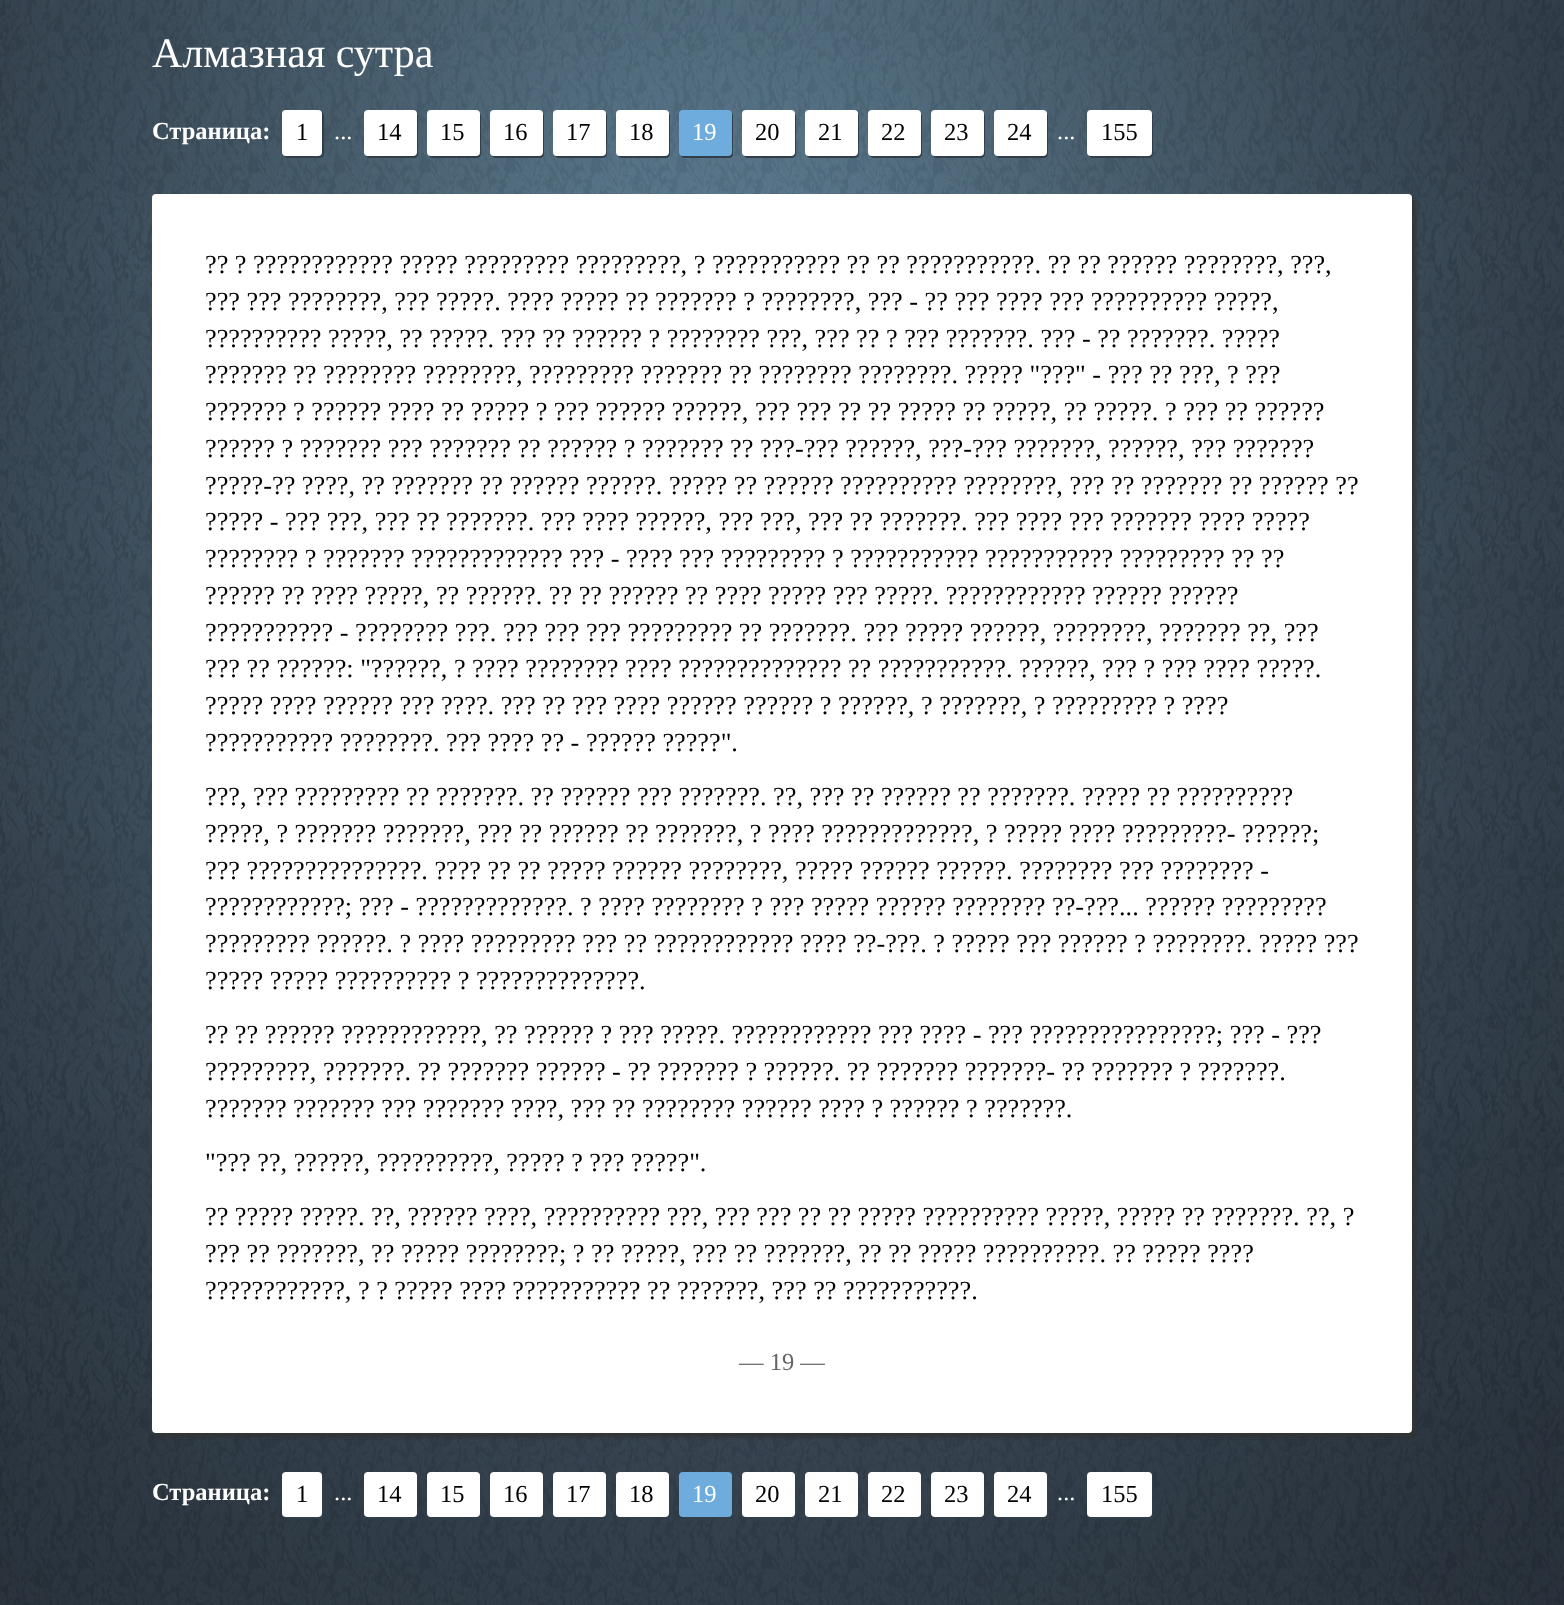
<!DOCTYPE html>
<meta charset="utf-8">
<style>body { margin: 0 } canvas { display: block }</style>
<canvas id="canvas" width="1564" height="1605"></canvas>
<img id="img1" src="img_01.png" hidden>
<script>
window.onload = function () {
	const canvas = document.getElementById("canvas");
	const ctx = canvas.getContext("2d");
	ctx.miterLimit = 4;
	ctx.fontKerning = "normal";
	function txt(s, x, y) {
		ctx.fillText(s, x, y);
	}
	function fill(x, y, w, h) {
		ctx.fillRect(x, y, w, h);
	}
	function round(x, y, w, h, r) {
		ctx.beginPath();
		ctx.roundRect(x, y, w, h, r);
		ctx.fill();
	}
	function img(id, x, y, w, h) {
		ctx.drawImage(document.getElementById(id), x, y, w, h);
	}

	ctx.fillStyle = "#FFFFFF";
	fill(0, 0, 1564, 1605);
	img("img1", 0, 0, 1564, 1605);
	ctx.fillStyle = "#313E49";
	ctx.beginPath();
	ctx.moveTo(284, 156);
	ctx.bezierCurveTo(285, 157, 286, 158, 288, 158);
	ctx.lineTo(320, 158);
	ctx.bezierCurveTo(322, 158, 324, 156, 324, 154);
	ctx.lineTo(324, 116);
	ctx.bezierCurveTo(324, 114, 323, 113, 322, 112);
	ctx.lineTo(322, 146);
	ctx.bezierCurveTo(322, 159, 321, 156, 307, 156);
	ctx.closePath();
	ctx.fill();
	ctx.fillStyle = "#FFFFFF";
	round(282, 110, 40, 46, 4);
	ctx.fillStyle = "#313E49";
	ctx.beginPath();
	ctx.moveTo(366, 156);
	ctx.bezierCurveTo(367, 157, 368, 158, 370, 158);
	ctx.lineTo(414, 158);
	ctx.bezierCurveTo(416, 158, 418, 156, 418, 154);
	ctx.lineTo(418, 116);
	ctx.bezierCurveTo(418, 115, 417, 113, 416, 113);
	ctx.lineTo(416, 139);
	ctx.bezierCurveTo(416, 155, 420, 156, 405, 156);
	ctx.closePath();
	ctx.fill();
	ctx.fillStyle = "#FFFFFF";
	round(364, 110, 53, 46, 4);
	ctx.fillStyle = "#313E49";
	ctx.beginPath();
	ctx.moveTo(429, 156);
	ctx.bezierCurveTo(430, 157, 431, 158, 433, 158);
	ctx.lineTo(477, 158);
	ctx.bezierCurveTo(479, 158, 481, 156, 481, 154);
	ctx.lineTo(481, 116);
	ctx.bezierCurveTo(481, 115, 480, 113, 479, 113);
	ctx.lineTo(480, 139);
	ctx.bezierCurveTo(480, 155, 483, 156, 468, 156);
	ctx.closePath();
	ctx.fill();
	ctx.fillStyle = "#FFFFFF";
	round(427, 110, 53, 46, 4);
	ctx.fillStyle = "#313E49";
	ctx.beginPath();
	ctx.moveTo(492, 156);
	ctx.bezierCurveTo(493, 157, 494, 158, 496, 158);
	ctx.lineTo(540, 158);
	ctx.bezierCurveTo(542, 158, 544, 156, 544, 154);
	ctx.lineTo(544, 116);
	ctx.bezierCurveTo(544, 115, 543, 113, 542, 113);
	ctx.lineTo(542, 139);
	ctx.bezierCurveTo(542, 155, 546, 156, 531, 156);
	ctx.closePath();
	ctx.fill();
	ctx.fillStyle = "#FFFFFF";
	round(490, 110, 53, 46, 4);
	ctx.fillStyle = "#313E49";
	ctx.beginPath();
	ctx.moveTo(555, 156);
	ctx.bezierCurveTo(556, 157, 557, 158, 559, 158);
	ctx.lineTo(603, 158);
	ctx.bezierCurveTo(605, 158, 607, 156, 607, 154);
	ctx.lineTo(607, 116);
	ctx.bezierCurveTo(607, 115, 606, 113, 605, 113);
	ctx.lineTo(606, 139);
	ctx.bezierCurveTo(606, 155, 609, 156, 594, 156);
	ctx.closePath();
	ctx.fill();
	ctx.fillStyle = "#FFFFFF";
	round(553, 110, 53, 46, 4);
	ctx.fillStyle = "#313E49";
	ctx.beginPath();
	ctx.moveTo(618, 156);
	ctx.bezierCurveTo(619, 157, 620, 158, 622, 158);
	ctx.lineTo(666, 158);
	ctx.bezierCurveTo(668, 158, 670, 156, 670, 154);
	ctx.lineTo(670, 116);
	ctx.bezierCurveTo(670, 115, 669, 113, 668, 113);
	ctx.lineTo(668, 139);
	ctx.bezierCurveTo(668, 155, 672, 156, 657, 156);
	ctx.closePath();
	ctx.fill();
	ctx.fillStyle = "#FFFFFF";
	round(616, 110, 53, 46, 4);
	ctx.fillStyle = "#313E49";
	ctx.beginPath();
	ctx.moveTo(681, 156);
	ctx.bezierCurveTo(682, 157, 683, 158, 685, 158);
	ctx.lineTo(729, 158);
	ctx.bezierCurveTo(731, 158, 733, 156, 733, 154);
	ctx.lineTo(733, 116);
	ctx.bezierCurveTo(733, 115, 732, 113, 731, 113);
	ctx.lineTo(732, 139);
	ctx.bezierCurveTo(732, 155, 735, 156, 720, 156);
	ctx.closePath();
	ctx.fill();
	ctx.fillStyle = "#6DACDD";
	round(679, 110, 53, 46, 4);
	ctx.fillStyle = "#313E49";
	ctx.beginPath();
	ctx.moveTo(744, 156);
	ctx.bezierCurveTo(745, 157, 746, 158, 748, 158);
	ctx.lineTo(792, 158);
	ctx.bezierCurveTo(794, 158, 796, 156, 796, 154);
	ctx.lineTo(796, 116);
	ctx.bezierCurveTo(796, 115, 795, 113, 794, 113);
	ctx.lineTo(794, 139);
	ctx.bezierCurveTo(794, 155, 798, 156, 783, 156);
	ctx.closePath();
	ctx.fill();
	ctx.fillStyle = "#FFFFFF";
	round(742, 110, 53, 46, 4);
	ctx.fillStyle = "#313E49";
	ctx.beginPath();
	ctx.moveTo(807, 156);
	ctx.bezierCurveTo(808, 157, 809, 158, 811, 158);
	ctx.lineTo(855, 158);
	ctx.bezierCurveTo(857, 158, 859, 156, 859, 154);
	ctx.lineTo(859, 116);
	ctx.bezierCurveTo(859, 115, 858, 113, 857, 113);
	ctx.lineTo(858, 139);
	ctx.bezierCurveTo(858, 155, 861, 156, 846, 156);
	ctx.closePath();
	ctx.fill();
	ctx.fillStyle = "#FFFFFF";
	round(805, 110, 53, 46, 4);
	ctx.fillStyle = "#313E49";
	ctx.beginPath();
	ctx.moveTo(870, 156);
	ctx.bezierCurveTo(871, 157, 872, 158, 874, 158);
	ctx.lineTo(918, 158);
	ctx.bezierCurveTo(920, 158, 922, 156, 922, 154);
	ctx.lineTo(922, 116);
	ctx.bezierCurveTo(922, 115, 921, 113, 920, 113);
	ctx.lineTo(920, 139);
	ctx.bezierCurveTo(920, 155, 924, 156, 909, 156);
	ctx.closePath();
	ctx.fill();
	ctx.fillStyle = "#FFFFFF";
	round(868, 110, 53, 46, 4);
	ctx.fillStyle = "#313E49";
	ctx.beginPath();
	ctx.moveTo(933, 156);
	ctx.bezierCurveTo(934, 157, 935, 158, 937, 158);
	ctx.lineTo(981, 158);
	ctx.bezierCurveTo(983, 158, 985, 156, 985, 154);
	ctx.lineTo(985, 116);
	ctx.bezierCurveTo(985, 115, 984, 113, 983, 113);
	ctx.lineTo(984, 139);
	ctx.bezierCurveTo(984, 155, 987, 156, 972, 156);
	ctx.closePath();
	ctx.fill();
	ctx.fillStyle = "#FFFFFF";
	round(931, 110, 53, 46, 4);
	ctx.fillStyle = "#313E49";
	ctx.beginPath();
	ctx.moveTo(996, 156);
	ctx.bezierCurveTo(997, 157, 998, 158, 1000, 158);
	ctx.lineTo(1044, 158);
	ctx.bezierCurveTo(1046, 158, 1048, 156, 1048, 154);
	ctx.lineTo(1048, 116);
	ctx.bezierCurveTo(1048, 115, 1047, 113, 1046, 113);
	ctx.lineTo(1046, 139);
	ctx.bezierCurveTo(1046, 155, 1050, 156, 1035, 156);
	ctx.closePath();
	ctx.fill();
	ctx.fillStyle = "#FFFFFF";
	round(994, 110, 53, 46, 4);
	ctx.fillStyle = "#313E49";
	ctx.beginPath();
	ctx.moveTo(1089, 156);
	ctx.bezierCurveTo(1090, 157, 1091, 158, 1093, 158);
	ctx.lineTo(1149, 158);
	ctx.bezierCurveTo(1151, 158, 1153, 156, 1153, 154);
	ctx.lineTo(1153, 116);
	ctx.bezierCurveTo(1153, 115, 1152, 113, 1151, 113);
	ctx.lineTo(1152, 139);
	ctx.bezierCurveTo(1152, 161, 1153, 156, 1129, 156);
	ctx.closePath();
	ctx.fill();
	ctx.fillStyle = "#FFFFFF";
	round(1087, 110, 65, 46, 4);
	ctx.fillStyle = "#333333";
	ctx.filter = "blur(2px)";
	ctx.beginPath();
	ctx.roundRect(156, 198, 1260, 1239, 4);
	ctx.fill();
	ctx.filter = "none";
	ctx.fillStyle = "#FFFFFF";
	round(152, 194, 1260, 1239, 4);
	ctx.fillStyle = "#313E49";
	ctx.beginPath();
	ctx.moveTo(285, 1517);
	ctx.bezierCurveTo(285, 1518, 287, 1519, 288, 1519);
	ctx.lineTo(320, 1519);
	ctx.bezierCurveTo(322, 1519, 324, 1517, 324, 1515);
	ctx.lineTo(324, 1478);
	ctx.bezierCurveTo(324, 1476, 323, 1475, 322, 1474);
	ctx.lineTo(322, 1501);
	ctx.bezierCurveTo(322, 1519, 325, 1517, 307, 1517);
	ctx.closePath();
	ctx.fill();
	ctx.fillStyle = "#FFFFFF";
	round(282, 1472, 40, 45, 4);
	ctx.fillStyle = "#313E49";
	ctx.beginPath();
	ctx.moveTo(367, 1517);
	ctx.bezierCurveTo(367, 1518, 369, 1519, 370, 1519);
	ctx.lineTo(414, 1519);
	ctx.bezierCurveTo(416, 1519, 418, 1517, 418, 1515);
	ctx.lineTo(418, 1478);
	ctx.bezierCurveTo(418, 1477, 417, 1476, 416, 1475);
	ctx.lineTo(416, 1507);
	ctx.bezierCurveTo(416, 1510, 418, 1517, 413, 1517);
	ctx.closePath();
	ctx.fill();
	ctx.fillStyle = "#FFFFFF";
	round(364, 1472, 53, 45, 4);
	ctx.fillStyle = "#313E49";
	ctx.beginPath();
	ctx.moveTo(430, 1517);
	ctx.bezierCurveTo(430, 1518, 432, 1519, 433, 1519);
	ctx.lineTo(477, 1519);
	ctx.bezierCurveTo(479, 1519, 481, 1517, 481, 1515);
	ctx.lineTo(481, 1478);
	ctx.bezierCurveTo(481, 1477, 480, 1476, 479, 1475);
	ctx.lineTo(480, 1507);
	ctx.bezierCurveTo(480, 1510, 481, 1517, 476, 1517);
	ctx.closePath();
	ctx.fill();
	ctx.fillStyle = "#FFFFFF";
	round(427, 1472, 53, 45, 4);
	ctx.fillStyle = "#313E49";
	ctx.beginPath();
	ctx.moveTo(493, 1517);
	ctx.bezierCurveTo(493, 1518, 495, 1519, 496, 1519);
	ctx.lineTo(540, 1519);
	ctx.bezierCurveTo(542, 1519, 544, 1517, 544, 1515);
	ctx.lineTo(544, 1478);
	ctx.bezierCurveTo(544, 1477, 543, 1476, 542, 1475);
	ctx.lineTo(542, 1507);
	ctx.bezierCurveTo(542, 1510, 544, 1517, 539, 1517);
	ctx.closePath();
	ctx.fill();
	ctx.fillStyle = "#FFFFFF";
	round(490, 1472, 53, 45, 4);
	ctx.fillStyle = "#313E49";
	ctx.beginPath();
	ctx.moveTo(556, 1517);
	ctx.bezierCurveTo(556, 1518, 558, 1519, 559, 1519);
	ctx.lineTo(603, 1519);
	ctx.bezierCurveTo(605, 1519, 607, 1517, 607, 1515);
	ctx.lineTo(607, 1478);
	ctx.bezierCurveTo(607, 1477, 606, 1476, 605, 1475);
	ctx.lineTo(606, 1507);
	ctx.bezierCurveTo(606, 1510, 607, 1517, 602, 1517);
	ctx.closePath();
	ctx.fill();
	ctx.fillStyle = "#FFFFFF";
	round(553, 1472, 53, 45, 4);
	ctx.fillStyle = "#313E49";
	ctx.beginPath();
	ctx.moveTo(619, 1517);
	ctx.bezierCurveTo(619, 1518, 621, 1519, 622, 1519);
	ctx.lineTo(666, 1519);
	ctx.bezierCurveTo(668, 1519, 670, 1517, 670, 1515);
	ctx.lineTo(670, 1478);
	ctx.bezierCurveTo(670, 1477, 669, 1476, 668, 1475);
	ctx.lineTo(668, 1507);
	ctx.bezierCurveTo(668, 1510, 670, 1517, 665, 1517);
	ctx.closePath();
	ctx.fill();
	ctx.fillStyle = "#FFFFFF";
	round(616, 1472, 53, 45, 4);
	ctx.fillStyle = "#313E49";
	ctx.beginPath();
	ctx.moveTo(682, 1517);
	ctx.bezierCurveTo(682, 1518, 684, 1519, 685, 1519);
	ctx.lineTo(729, 1519);
	ctx.bezierCurveTo(731, 1519, 733, 1517, 733, 1515);
	ctx.lineTo(733, 1478);
	ctx.bezierCurveTo(733, 1477, 732, 1476, 731, 1475);
	ctx.lineTo(732, 1507);
	ctx.bezierCurveTo(732, 1510, 733, 1517, 728, 1517);
	ctx.closePath();
	ctx.fill();
	ctx.fillStyle = "#6DACDD";
	round(679, 1472, 53, 45, 4);
	ctx.fillStyle = "#313E49";
	ctx.beginPath();
	ctx.moveTo(745, 1517);
	ctx.bezierCurveTo(745, 1518, 747, 1519, 748, 1519);
	ctx.lineTo(792, 1519);
	ctx.bezierCurveTo(794, 1519, 796, 1517, 796, 1515);
	ctx.lineTo(796, 1478);
	ctx.bezierCurveTo(796, 1477, 795, 1476, 794, 1475);
	ctx.lineTo(794, 1507);
	ctx.bezierCurveTo(794, 1510, 796, 1517, 791, 1517);
	ctx.closePath();
	ctx.fill();
	ctx.fillStyle = "#FFFFFF";
	round(742, 1472, 53, 45, 4);
	ctx.fillStyle = "#313E49";
	ctx.beginPath();
	ctx.moveTo(808, 1517);
	ctx.bezierCurveTo(808, 1518, 810, 1519, 811, 1519);
	ctx.lineTo(855, 1519);
	ctx.bezierCurveTo(857, 1519, 859, 1517, 859, 1515);
	ctx.lineTo(859, 1478);
	ctx.bezierCurveTo(859, 1477, 858, 1476, 857, 1475);
	ctx.lineTo(858, 1507);
	ctx.bezierCurveTo(858, 1510, 859, 1517, 854, 1517);
	ctx.closePath();
	ctx.fill();
	ctx.fillStyle = "#FFFFFF";
	round(805, 1472, 53, 45, 4);
	ctx.fillStyle = "#313E49";
	ctx.beginPath();
	ctx.moveTo(871, 1517);
	ctx.bezierCurveTo(871, 1518, 873, 1519, 874, 1519);
	ctx.lineTo(918, 1519);
	ctx.bezierCurveTo(920, 1519, 922, 1517, 922, 1515);
	ctx.lineTo(922, 1478);
	ctx.bezierCurveTo(922, 1477, 921, 1476, 920, 1475);
	ctx.lineTo(920, 1507);
	ctx.bezierCurveTo(920, 1510, 922, 1517, 917, 1517);
	ctx.closePath();
	ctx.fill();
	ctx.fillStyle = "#FFFFFF";
	round(868, 1472, 53, 45, 4);
	ctx.fillStyle = "#313E49";
	ctx.beginPath();
	ctx.moveTo(934, 1517);
	ctx.bezierCurveTo(934, 1518, 936, 1519, 937, 1519);
	ctx.lineTo(981, 1519);
	ctx.bezierCurveTo(983, 1519, 985, 1517, 985, 1515);
	ctx.lineTo(985, 1478);
	ctx.bezierCurveTo(985, 1477, 984, 1476, 983, 1475);
	ctx.lineTo(984, 1507);
	ctx.bezierCurveTo(984, 1510, 985, 1517, 980, 1517);
	ctx.closePath();
	ctx.fill();
	ctx.fillStyle = "#FFFFFF";
	round(931, 1472, 53, 45, 4);
	ctx.fillStyle = "#313E49";
	ctx.beginPath();
	ctx.moveTo(997, 1517);
	ctx.bezierCurveTo(997, 1518, 999, 1519, 1000, 1519);
	ctx.lineTo(1044, 1519);
	ctx.bezierCurveTo(1046, 1519, 1048, 1517, 1048, 1515);
	ctx.lineTo(1048, 1478);
	ctx.bezierCurveTo(1048, 1477, 1047, 1476, 1046, 1475);
	ctx.lineTo(1046, 1507);
	ctx.bezierCurveTo(1046, 1510, 1048, 1517, 1043, 1517);
	ctx.closePath();
	ctx.fill();
	ctx.fillStyle = "#FFFFFF";
	round(994, 1472, 53, 45, 4);
	ctx.fillStyle = "#313E49";
	ctx.beginPath();
	ctx.moveTo(1090, 1517);
	ctx.bezierCurveTo(1090, 1518, 1092, 1519, 1093, 1519);
	ctx.lineTo(1149, 1519);
	ctx.bezierCurveTo(1151, 1519, 1153, 1517, 1153, 1515);
	ctx.lineTo(1153, 1478);
	ctx.bezierCurveTo(1153, 1477, 1152, 1476, 1151, 1475);
	ctx.lineTo(1152, 1507);
	ctx.bezierCurveTo(1152, 1510, 1153, 1517, 1148, 1517);
	ctx.closePath();
	ctx.fill();
	ctx.fillStyle = "#FFFFFF";
	round(1087, 1472, 65, 45, 4);
	ctx.font = "42px Liberation Serif";
	txt("Алмазная сутра", 152, 67);
	ctx.font = "bold 24.5px Liberation Serif";
	txt("Страница:", 152, 139);
	ctx.font = "24.5px Liberation Serif";
	ctx.fillStyle = "#000000";
	txt("1", 296, 140);
	ctx.fillStyle = "#FFFFFF";
	txt("...", 334, 139);
	ctx.fillStyle = "#000000";
	txt("14", 377, 140);
	txt("15", 440, 140);
	txt("16", 503, 140);
	txt("17", 566, 140);
	txt("18", 629, 140);
	ctx.fillStyle = "#FFFFFF";
	txt("19", 692, 140);
	ctx.fillStyle = "#000000";
	txt("20", 755, 140);
	txt("21", 818, 140);
	txt("22", 881, 140);
	txt("23", 944, 140);
	txt("24", 1007, 140);
	ctx.fillStyle = "#FFFFFF";
	txt("...", 1057, 139);
	ctx.fillStyle = "#000000";
	txt("155", 1101, 140);
	ctx.font = "26.25px Liberation Serif";
	txt("?? ? ???????????? ????? ????????? ?????????, ? ??????????? ?? ?? ???????????. ?? ?? ?????? ????????, ???,", 205, 273);
	txt("??? ??? ????????, ??? ?????. ???? ????? ?? ??????? ? ????????, ??? - ?? ??? ???? ??? ?????????? ?????,", 205, 310);
	txt("?????????? ?????, ?? ?????. ??? ?? ?????? ? ???????? ???, ??? ?? ? ??? ???????. ??? - ?? ???????. ?????", 205, 347);
	txt("??????? ?? ???????? ????????, ????????? ??????? ?? ???????? ????????. ????? \"???\" - ??? ?? ???, ? ???", 205, 383);
	txt("??????? ? ?????? ???? ?? ????? ? ??? ?????? ??????, ??? ??? ?? ?? ????? ?? ?????, ?? ?????. ? ??? ?? ??????", 205, 420);
	txt("?????? ? ??????? ??? ??????? ?? ?????? ? ??????? ?? ???-??? ??????, ???-??? ???????, ??????, ??? ???????", 205, 457);
	txt("?????-?? ????, ?? ??????? ?? ?????? ??????. ????? ?? ?????? ?????????? ????????, ??? ?? ??????? ?? ?????? ??", 205, 494);
	txt("????? - ??? ???, ??? ?? ???????. ??? ???? ??????, ??? ???, ??? ?? ???????. ??? ???? ??? ??????? ???? ?????", 205, 530);
	txt("???????? ? ??????? ????????????? ??? - ???? ??? ????????? ? ??????????? ??????????? ????????? ?? ??", 205, 567);
	txt("?????? ?? ???? ?????, ?? ??????. ?? ?? ?????? ?? ???? ????? ??? ?????. ???????????? ?????? ??????", 205, 604);
	txt("??????????? - ???????? ???. ??? ??? ??? ????????? ?? ???????. ??? ????? ??????, ????????, ??????? ??, ???", 205, 641);
	txt("??? ?? ??????: \"??????, ? ???? ???????? ???? ?????????????? ?? ???????????. ??????, ??? ? ??? ???? ?????.", 205, 677);
	txt("????? ???? ?????? ??? ????. ??? ?? ??? ???? ?????? ?????? ? ??????, ? ???????, ? ????????? ? ????", 205, 714);
	txt("??????????? ????????. ??? ???? ?? - ?????? ?????\".", 205, 751);
	txt("???, ??? ????????? ?? ???????. ?? ?????? ??? ???????. ??, ??? ?? ?????? ?? ???????. ????? ?? ??????????", 205, 805);
	txt("?????, ? ??????? ???????, ??? ?? ?????? ?? ???????, ? ???? ?????????????, ? ????? ???? ?????????- ??????;", 205, 842);
	txt("??? ???????????????. ???? ?? ?? ????? ?????? ????????, ????? ?????? ??????. ???????? ??? ???????? -", 205, 879);
	txt("????????????; ??? - ?????????????. ? ???? ???????? ? ??? ????? ?????? ???????? ??-???... ?????? ?????????", 205, 915);
	txt("????????? ??????. ? ???? ????????? ??? ?? ???????????? ???? ??-???. ? ????? ??? ?????? ? ????????. ????? ???", 205, 952);
	txt("????? ????? ?????????? ? ??????????????.", 205, 989);
	txt("?? ?? ?????? ????????????, ?? ?????? ? ??? ?????. ???????????? ??? ???? - ??? ????????????????; ??? - ???", 205, 1043);
	txt("?????????, ???????. ?? ??????? ?????? - ?? ??????? ? ??????. ?? ??????? ???????- ?? ??????? ? ???????.", 205, 1080);
	txt("??????? ??????? ??? ??????? ????, ??? ?? ???????? ?????? ???? ? ?????? ? ???????.", 205, 1117);
	txt("\"??? ??, ??????, ??????????, ????? ? ??? ?????\".", 205, 1171);
	txt("?? ????? ?????. ??, ?????? ????, ?????????? ???, ??? ??? ?? ?? ????? ?????????? ?????, ????? ?? ???????. ??, ?", 205, 1225);
	txt("??? ?? ???????, ?? ????? ????????; ? ?? ?????, ??? ?? ???????, ?? ?? ????? ??????????. ?? ????? ????", 205, 1262);
	txt("????????????, ? ? ????? ???? ??????????? ?? ???????, ??? ?? ???????????.", 205, 1299);
	ctx.font = "24.5px Liberation Serif";
	ctx.fillStyle = "#666666";
	txt("— 19 —", 739, 1370);
	ctx.font = "bold 24.5px Liberation Serif";
	ctx.fillStyle = "#FFFFFF";
	txt("Страница:", 152, 1500);
	ctx.font = "24.5px Liberation Serif";
	ctx.fillStyle = "#000000";
	txt("1", 296, 1502);
	ctx.fillStyle = "#FFFFFF";
	txt("...", 334, 1500);
	ctx.fillStyle = "#000000";
	txt("14", 377, 1502);
	txt("15", 440, 1502);
	txt("16", 503, 1502);
	txt("17", 566, 1502);
	txt("18", 629, 1502);
	ctx.fillStyle = "#FFFFFF";
	txt("19", 692, 1502);
	ctx.fillStyle = "#000000";
	txt("20", 755, 1502);
	txt("21", 818, 1502);
	txt("22", 881, 1502);
	txt("23", 944, 1502);
	txt("24", 1007, 1502);
	ctx.fillStyle = "#FFFFFF";
	txt("...", 1057, 1500);
	ctx.fillStyle = "#000000";
	txt("155", 1101, 1502);
};
</script>
